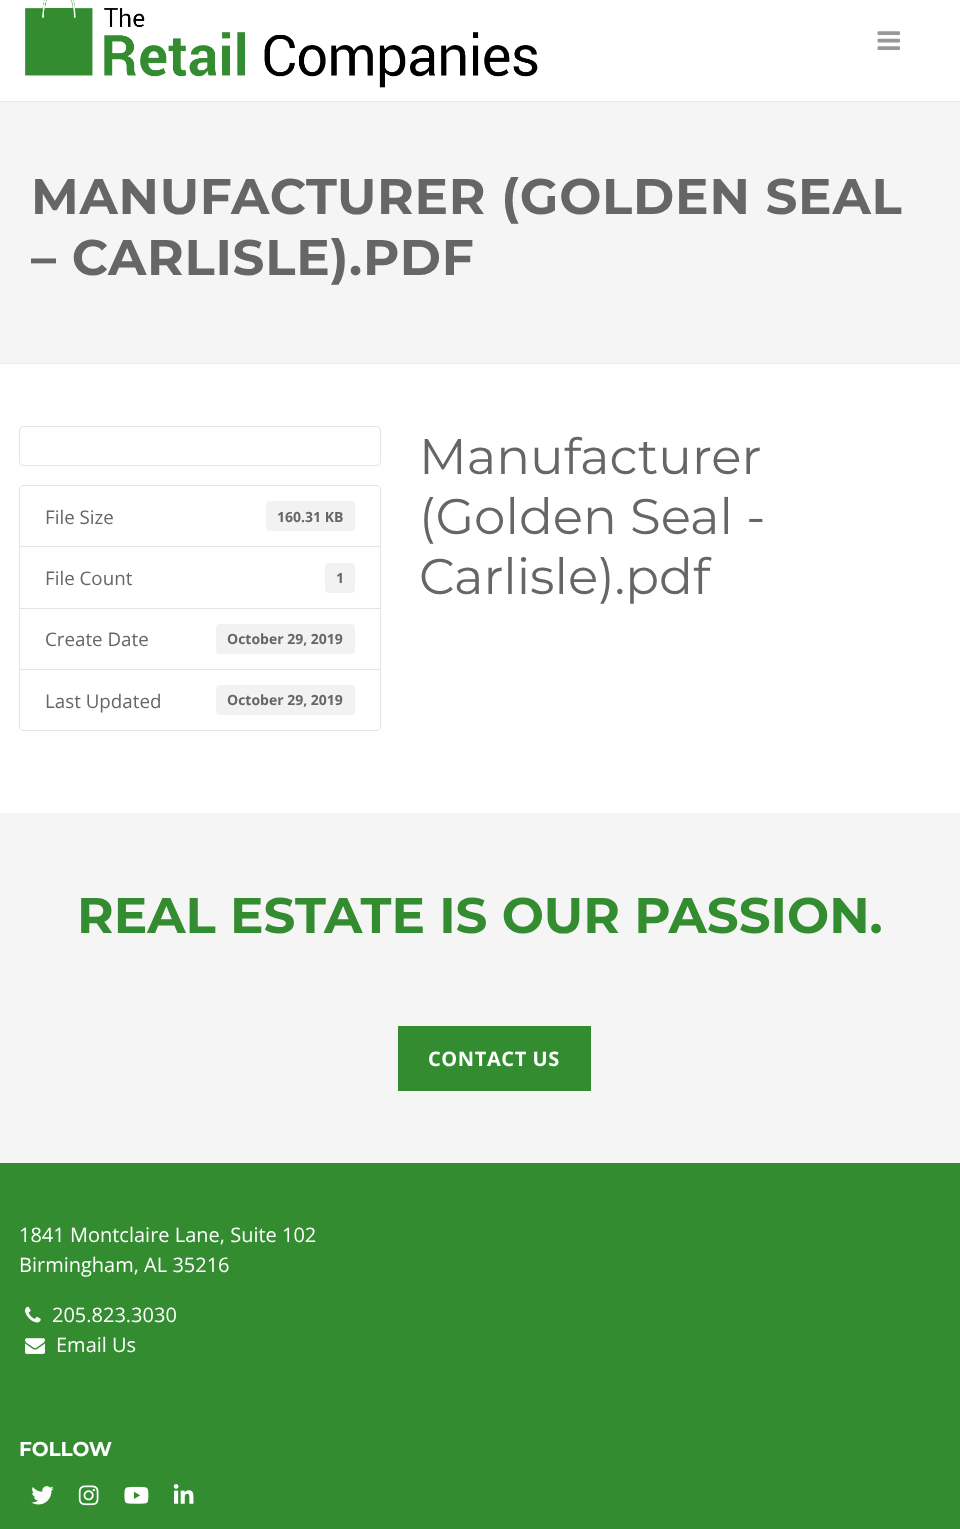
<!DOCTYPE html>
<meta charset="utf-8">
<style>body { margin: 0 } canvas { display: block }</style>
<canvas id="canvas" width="960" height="1529"></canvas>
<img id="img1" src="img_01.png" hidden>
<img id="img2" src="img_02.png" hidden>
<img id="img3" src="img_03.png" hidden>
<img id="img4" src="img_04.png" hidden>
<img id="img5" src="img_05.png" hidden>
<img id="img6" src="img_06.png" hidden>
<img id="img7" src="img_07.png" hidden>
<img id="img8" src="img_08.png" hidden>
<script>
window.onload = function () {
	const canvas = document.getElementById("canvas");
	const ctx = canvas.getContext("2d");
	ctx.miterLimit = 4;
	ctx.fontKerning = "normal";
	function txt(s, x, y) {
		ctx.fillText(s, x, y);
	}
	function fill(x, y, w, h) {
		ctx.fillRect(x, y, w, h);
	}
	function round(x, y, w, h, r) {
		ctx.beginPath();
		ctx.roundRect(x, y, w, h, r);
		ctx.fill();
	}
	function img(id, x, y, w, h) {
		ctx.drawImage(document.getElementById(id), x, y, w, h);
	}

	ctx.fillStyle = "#FFFFFF";
	fill(0, 0, 960, 1529);
	img("img1", 25, 0, 513, 88);
	img("img2", 877, 31, 23, 19);
	ctx.fillStyle = "#F5F5F5";
	fill(0, 102, 960, 261);
	ctx.fillStyle = "#EBEBEB";
	fill(0, 101, 960, 1);
	fill(0, 363, 960, 1);
	ctx.beginPath();
	ctx.roundRect(19.5, 426.5, 361, 39, 3.5);
	ctx.strokeStyle = "#E5E5E5";
	ctx.stroke();
	ctx.beginPath();
	ctx.roundRect(19.5, 485.5, 361, 62, [4.5, 4.5, 0, 0]);
	ctx.stroke();
	ctx.fillStyle = "#F2F2F2";
	round(266, 501, 89, 30, 4);
	ctx.fillStyle = "#FFFFFF";
	fill(20, 547, 360, 1);
	ctx.strokeRect(19.5, 546.5, 361, 62);
	ctx.fillStyle = "#F2F2F2";
	round(325, 563, 30, 30, 4);
	ctx.strokeRect(19.5, 608.5, 361, 61);
	round(216, 624, 139, 30, 4);
	ctx.fillStyle = "#FFFFFF";
	ctx.beginPath();
	ctx.roundRect(19.5, 669.5, 361, 61, [0, 0, 4.5, 4.5]);
	ctx.fill();
	ctx.stroke();
	ctx.fillStyle = "#F2F2F2";
	round(216, 685, 139, 30, 4);
	ctx.fillStyle = "#F5F5F5";
	fill(0, 813, 960, 350);
	ctx.fillStyle = "#338C30";
	fill(398, 1026, 193, 65);
	fill(0, 1163, 960, 366);
	img("img3", 25, 1306, 16, 17);
	img("img4", 25, 1338, 20, 16);
	img("img5", 31, 1486, 23, 19);
	img("img6", 78, 1485, 21, 21);
	img("img7", 124, 1486, 25, 18);
	img("img8", 173, 1484, 21, 20);
	ctx.letterSpacing = "0.75px";
	ctx.font = "bold 50px Montserrat";
	ctx.fillStyle = "#666666";
	txt("MANUFACTURER (GOLDEN SEAL", 31, 214);
	txt("– CARLISLE).PDF", 31, 275);
	ctx.letterSpacing = "0px";
	ctx.font = "18.75px Open Sans";
	txt("File Size", 45, 524);
	ctx.font = "bold 14px Open Sans";
	txt("160.31 KB", 277, 522);
	ctx.font = "18.75px Open Sans";
	txt("File Count", 45, 585);
	ctx.font = "bold 14px Open Sans";
	txt("1", 336, 583);
	ctx.font = "18.75px Open Sans";
	txt("Create Date", 45, 646);
	ctx.font = "bold 14px Open Sans";
	txt("October 29, 2019", 227, 644);
	ctx.font = "18.75px Open Sans";
	txt("Last Updated", 45, 708);
	ctx.font = "bold 14px Open Sans";
	txt("October 29, 2019", 227, 705);
	ctx.font = "50px Montserrat";
	txt("Manufacturer", 419, 474);
	txt("(Golden Seal -", 419, 534);
	txt("Carlisle).pdf", 419, 594);
	ctx.font = "bold 50px Montserrat";
	ctx.fillStyle = "#338C30";
	txt("REAL ESTATE IS OUR PASSION.", 77, 933);
	ctx.letterSpacing = "0.6px";
	ctx.font = "bold 20px Open Sans";
	ctx.fillStyle = "#FFFFFF";
	txt("CONTACT US", 428, 1066);
	ctx.letterSpacing = "0px";
	ctx.font = "20px Open Sans";
	txt("1841 Montclaire Lane, Suite 102", 19, 1242);
	txt("Birmingham, AL 35216", 19, 1272);
	txt("205.823.3030", 52, 1322);
	txt("Email Us", 56, 1352);
	ctx.font = "bold 20px Montserrat";
	txt("FOLLOW", 19, 1456);
};
</script>
